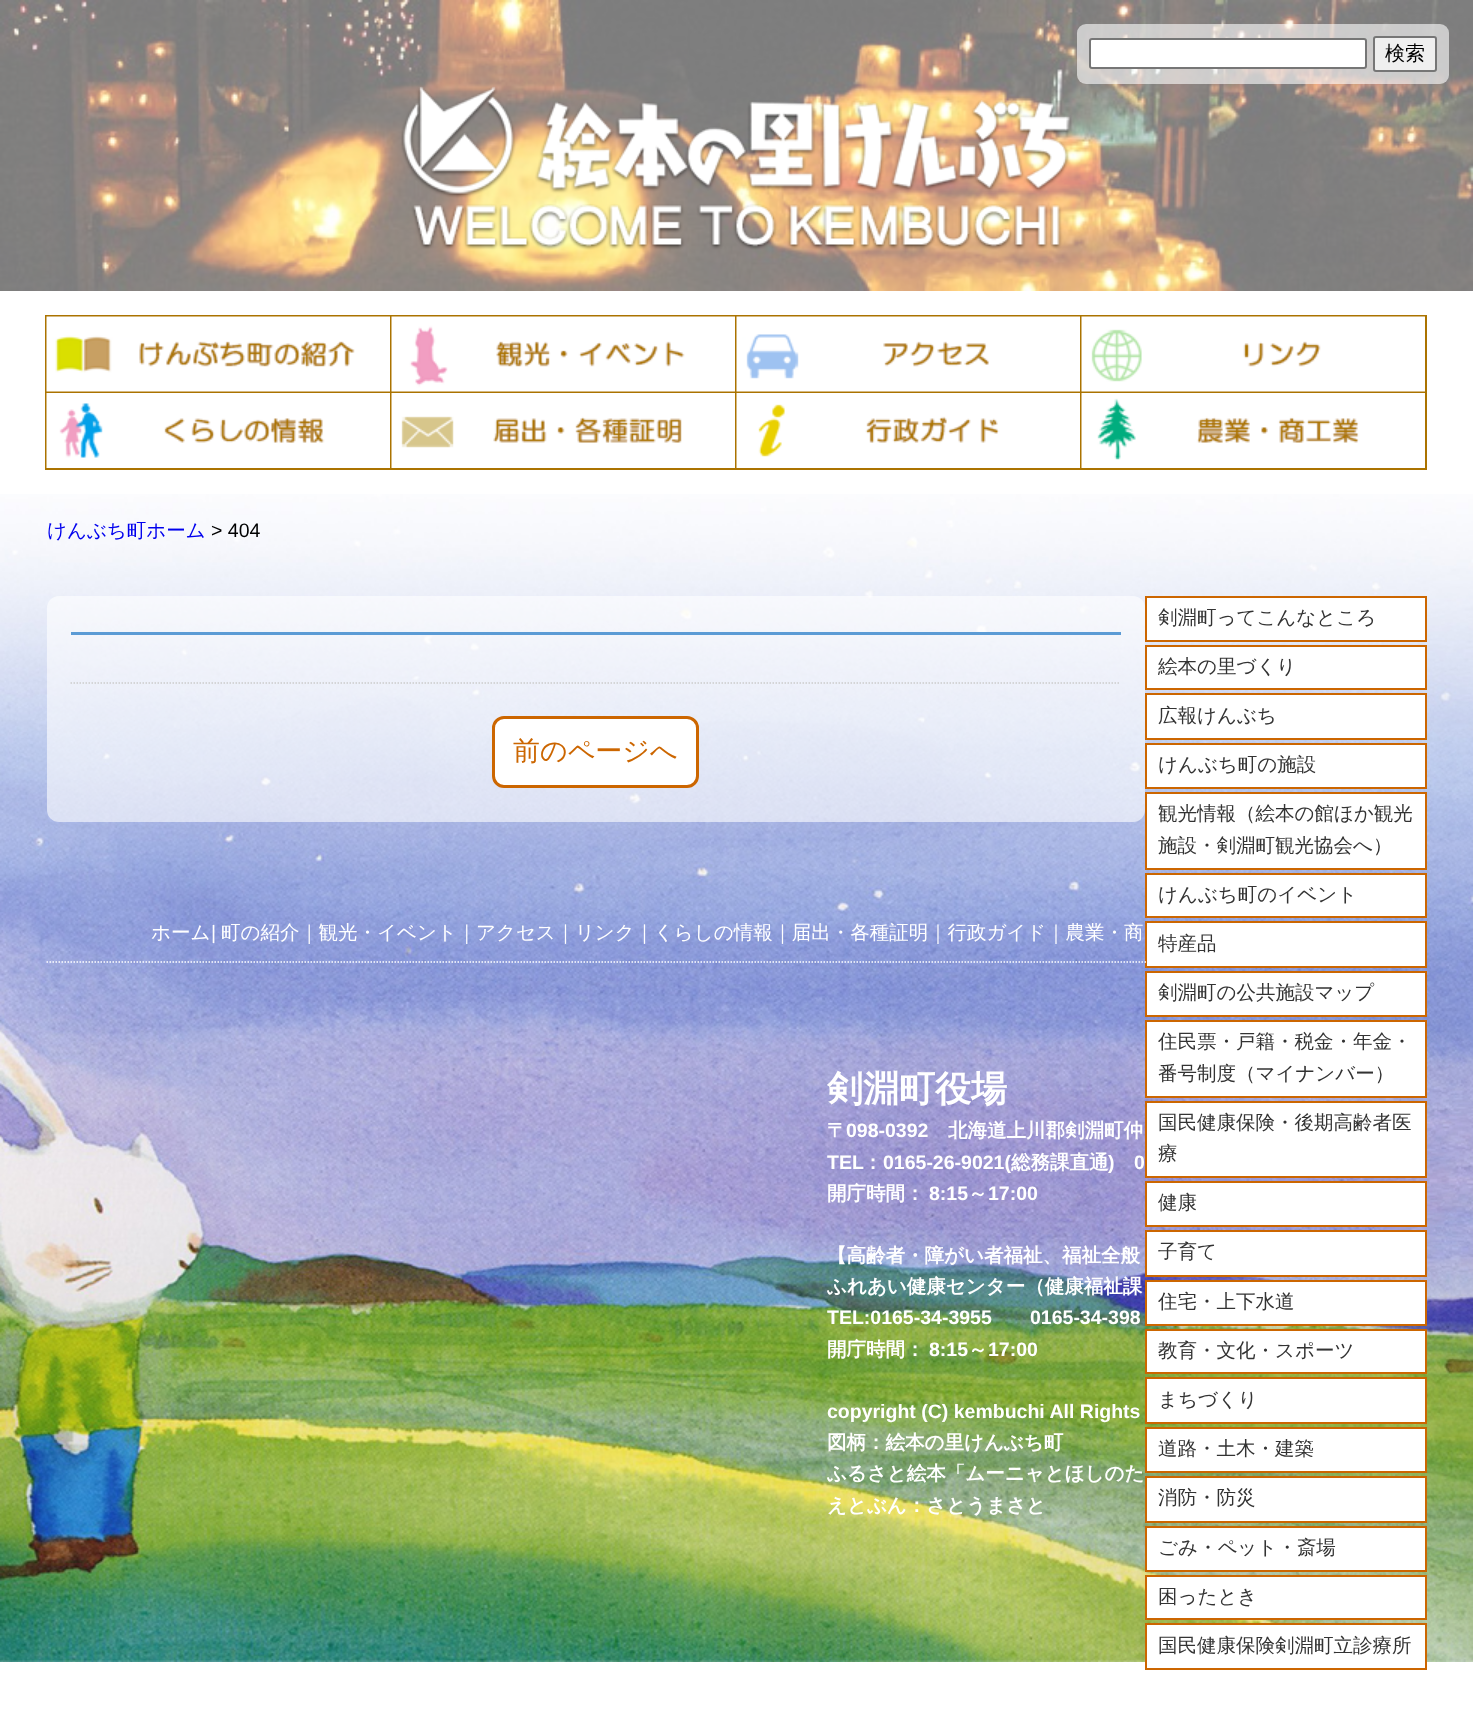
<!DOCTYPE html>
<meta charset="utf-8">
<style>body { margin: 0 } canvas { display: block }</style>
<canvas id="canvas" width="1473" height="1727"></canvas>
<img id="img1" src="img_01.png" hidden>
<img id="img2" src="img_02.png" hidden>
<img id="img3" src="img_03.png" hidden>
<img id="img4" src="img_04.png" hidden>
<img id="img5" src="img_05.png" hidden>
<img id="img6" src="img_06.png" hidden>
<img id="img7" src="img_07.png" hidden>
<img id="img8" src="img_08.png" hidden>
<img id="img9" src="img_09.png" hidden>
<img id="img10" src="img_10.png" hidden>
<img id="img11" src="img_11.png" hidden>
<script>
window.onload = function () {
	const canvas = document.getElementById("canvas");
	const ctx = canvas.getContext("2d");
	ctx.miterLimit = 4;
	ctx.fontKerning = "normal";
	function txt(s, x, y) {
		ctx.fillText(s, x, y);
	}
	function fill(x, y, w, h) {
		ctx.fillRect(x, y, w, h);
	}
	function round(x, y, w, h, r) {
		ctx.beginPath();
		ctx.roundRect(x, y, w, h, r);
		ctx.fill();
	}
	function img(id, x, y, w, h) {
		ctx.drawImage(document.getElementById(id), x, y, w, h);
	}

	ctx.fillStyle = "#FFFFFF";
	fill(0, 0, 1473, 1727);
	img("img1", 0, 494, 1473, 1168);
	img("img2", 0, 0, 1473, 291);
	img("img3", 401, 86, 671, 164);
	ctx.strokeStyle = "#AB7300";
	ctx.lineWidth = 2;
	ctx.strokeRect(46, 316, 345, 76);
	img("img4", 46, 316, 344, 76);
	ctx.strokeRect(391, 316, 345, 76);
	img("img5", 391, 316, 344, 76);
	ctx.strokeRect(736, 316, 345, 76);
	img("img6", 736, 316, 344, 76);
	ctx.strokeRect(1081, 316, 345, 76);
	img("img7", 1081, 316, 344, 76);
	ctx.strokeRect(46, 393, 345, 76);
	img("img8", 46, 393, 344, 75);
	ctx.strokeRect(391, 393, 345, 76);
	img("img9", 391, 393, 344, 75);
	ctx.strokeRect(736, 393, 345, 76);
	img("img10", 736, 393, 344, 75);
	ctx.strokeRect(1081, 393, 345, 76);
	img("img11", 1081, 393, 344, 75);
	ctx.fillStyle = "rgba(255, 255, 255, 0.6)";
	round(1077, 24, 372, 60, 9);
	ctx.fillStyle = "#FFFFFF";
	ctx.beginPath();
	ctx.roundRect(1090, 39, 276, 29, 2);
	ctx.fill();
	ctx.strokeStyle = "#767676";
	ctx.stroke();
	ctx.fillStyle = "#EFEFEF";
	ctx.beginPath();
	ctx.roundRect(1374, 37, 62, 34, 2);
	ctx.fill();
	ctx.stroke();
	ctx.fillStyle = "rgba(255, 255, 255, 0.6)";
	round(47, 596, 1098, 226, 12);
	ctx.fillStyle = "#5B9BD5";
	fill(71, 632, 1050, 3);
	ctx.beginPath();
	ctx.moveTo(70.5, 683);
	ctx.lineTo(1120.5, 683);
	ctx.strokeStyle = "#CCCCCC";
	ctx.lineWidth = 1.5;
	ctx.setLineDash([1.5, 1.5]);
	ctx.stroke();
	ctx.fillStyle = "#FFFFFF";
	ctx.beginPath();
	ctx.roundRect(493.5, 717.5, 204, 69, 10.5);
	ctx.fill();
	ctx.strokeStyle = "#CC6600";
	ctx.lineWidth = 3;
	ctx.setLineDash([]);
	ctx.stroke();
	ctx.beginPath();
	ctx.rect(1146, 597, 280, 44);
	ctx.fill();
	ctx.lineWidth = 2;
	ctx.stroke();
	ctx.beginPath();
	ctx.rect(1146, 646, 280, 43);
	ctx.fill();
	ctx.stroke();
	ctx.beginPath();
	ctx.rect(1146, 694, 280, 45);
	ctx.fill();
	ctx.stroke();
	ctx.beginPath();
	ctx.rect(1146, 744, 280, 44);
	ctx.fill();
	ctx.stroke();
	ctx.beginPath();
	ctx.rect(1146, 793, 280, 76);
	ctx.fill();
	ctx.stroke();
	ctx.beginPath();
	ctx.rect(1146, 874, 280, 43);
	ctx.fill();
	ctx.stroke();
	ctx.beginPath();
	ctx.rect(1146, 922, 280, 45);
	ctx.fill();
	ctx.stroke();
	ctx.beginPath();
	ctx.rect(1146, 972, 280, 44);
	ctx.fill();
	ctx.stroke();
	ctx.beginPath();
	ctx.rect(1146, 1021, 280, 76);
	ctx.fill();
	ctx.stroke();
	ctx.beginPath();
	ctx.rect(1146, 1102, 280, 75);
	ctx.fill();
	ctx.stroke();
	ctx.beginPath();
	ctx.rect(1146, 1182, 280, 44);
	ctx.fill();
	ctx.stroke();
	ctx.beginPath();
	ctx.rect(1146, 1231, 280, 45);
	ctx.fill();
	ctx.stroke();
	ctx.beginPath();
	ctx.rect(1146, 1281, 280, 44);
	ctx.fill();
	ctx.stroke();
	ctx.beginPath();
	ctx.rect(1146, 1330, 280, 43);
	ctx.fill();
	ctx.stroke();
	ctx.beginPath();
	ctx.rect(1146, 1378, 280, 45);
	ctx.fill();
	ctx.stroke();
	ctx.beginPath();
	ctx.rect(1146, 1428, 280, 44);
	ctx.fill();
	ctx.stroke();
	ctx.beginPath();
	ctx.rect(1146, 1477, 280, 45);
	ctx.fill();
	ctx.stroke();
	ctx.beginPath();
	ctx.rect(1146, 1527, 280, 44);
	ctx.fill();
	ctx.stroke();
	ctx.beginPath();
	ctx.rect(1146, 1576, 280, 43);
	ctx.fill();
	ctx.stroke();
	fill(1147, 1625, 278, 37);
	ctx.strokeRect(1146, 1624, 280, 45);
	ctx.beginPath();
	ctx.moveTo(46.5, 962);
	ctx.lineTo(1426.5, 962);
	ctx.strokeStyle = "#FFFFFF";
	ctx.lineWidth = 1.5;
	ctx.setLineDash([1.5, 1.5]);
	ctx.stroke();
	ctx.font = "500 20px WenQuanYi Zen Hei";
	ctx.fillStyle = "#000000";
	txt("検索", 1385, 60);
	ctx.font = "500 19.5px WenQuanYi Zen Hei";
	ctx.fillStyle = "#0000EE";
	txt("けんぶち町ホーム", 47, 537);
	ctx.font = "19.5px Liberation Sans";
	ctx.fillStyle = "#000000";
	txt("> 404", 211, 537);
	ctx.font = "500 27px WenQuanYi Zen Hei";
	ctx.fillStyle = "#CC6600";
	txt("前のページへ", 513, 760);
	ctx.font = "500 19.5px WenQuanYi Zen Hei";
	ctx.fillStyle = "#333333";
	txt("剣淵町ってこんなところ", 1158, 624);
	txt("絵本の里づくり", 1158, 673);
	txt("広報けんぶち", 1158, 722);
	txt("けんぶち町の施設", 1158, 771);
	txt("観光情報（絵本の館ほか観光", 1158, 820);
	txt("施設・剣淵町観光協会へ）", 1158, 852);
	txt("けんぶち町のイベント", 1158, 901);
	txt("特産品", 1158, 950);
	txt("剣淵町の公共施設マップ", 1158, 999);
	txt("住民票・戸籍・税金・年金・", 1158, 1048);
	txt("番号制度（マイナンバー）", 1158, 1080);
	txt("国民健康保険・後期高齢者医", 1158, 1129);
	txt("療", 1158, 1160);
	txt("健康", 1158, 1209);
	txt("子育て", 1158, 1258);
	txt("住宅・上下水道", 1158, 1308);
	txt("教育・文化・スポーツ", 1158, 1357);
	txt("まちづくり", 1158, 1406);
	txt("道路・土木・建築", 1158, 1455);
	txt("消防・防災", 1158, 1504);
	txt("ごみ・ペット・斎場", 1158, 1554);
	txt("困ったとき", 1158, 1603);
	txt("国民健康保険剣淵町立診療所", 1158, 1652);
	ctx.fillStyle = "#FFFFFF";
	txt("ホーム", 151, 939);
	ctx.font = "19.5px Liberation Sans";
	txt("|", 211, 939);
	ctx.font = "500 19.5px WenQuanYi Zen Hei";
	txt("町の紹介｜観光・イベント｜アクセス｜リンク｜くらしの情報｜届出・各種証明｜行政ガイド｜農業・商", 221, 939);
	ctx.font = "bold 36px WenQuanYi Zen Hei";
	txt("剣淵町役場", 827, 1101);
	ctx.font = "bold 19.5px WenQuanYi Zen Hei";
	txt("〒", 827, 1137);
	ctx.font = "bold 19.5px Liberation Sans";
	txt("098-0392", 846, 1137);
	ctx.font = "bold 19.5px WenQuanYi Zen Hei";
	txt("北海道上川郡剣淵町仲", 948, 1137);
	ctx.font = "bold 19.5px Liberation Sans";
	txt("TEL", 827, 1169);
	ctx.font = "bold 19.5px WenQuanYi Zen Hei";
	txt("：", 863, 1169);
	ctx.font = "bold 19.5px Liberation Sans";
	txt("0165-26-9021(", 883, 1169);
	ctx.font = "bold 19.5px WenQuanYi Zen Hei";
	txt("総務課直通", 1011, 1169);
	ctx.font = "bold 19.5px Liberation Sans";
	txt(")", 1108, 1169);
	txt("0", 1134, 1169);
	ctx.font = "bold 19.5px WenQuanYi Zen Hei";
	txt("開庁時間：", 827, 1200);
	ctx.font = "bold 19.5px Liberation Sans";
	txt("8:15", 929, 1200);
	ctx.font = "bold 19.5px WenQuanYi Zen Hei";
	txt("～", 968, 1200);
	ctx.font = "bold 19.5px Liberation Sans";
	txt("17:00", 988, 1200);
	ctx.font = "bold 19.5px WenQuanYi Zen Hei";
	txt("【高齢者・障がい者福祉、福祉全般", 827, 1262);
	txt("ふれあい健康センター（健康福祉課", 827, 1293);
	ctx.font = "bold 19.5px Liberation Sans";
	txt("TEL:0165-34-3955", 827, 1324);
	txt("0165-34-398", 1030, 1324);
	ctx.font = "bold 19.5px WenQuanYi Zen Hei";
	txt("開庁時間：", 827, 1356);
	ctx.font = "bold 19.5px Liberation Sans";
	txt("8:15", 929, 1356);
	ctx.font = "bold 19.5px WenQuanYi Zen Hei";
	txt("～", 968, 1356);
	ctx.font = "bold 19.5px Liberation Sans";
	txt("17:00", 988, 1356);
	txt("copyright (C) kembuchi All Rights", 827, 1418);
	ctx.font = "bold 19.5px WenQuanYi Zen Hei";
	txt("図柄：絵本の里けんぶち町", 827, 1449);
	txt("ふるさと絵本「ムーニャとほしのた", 827, 1480);
	txt("えとぶん：さとうまさと", 827, 1512);
};
</script>
